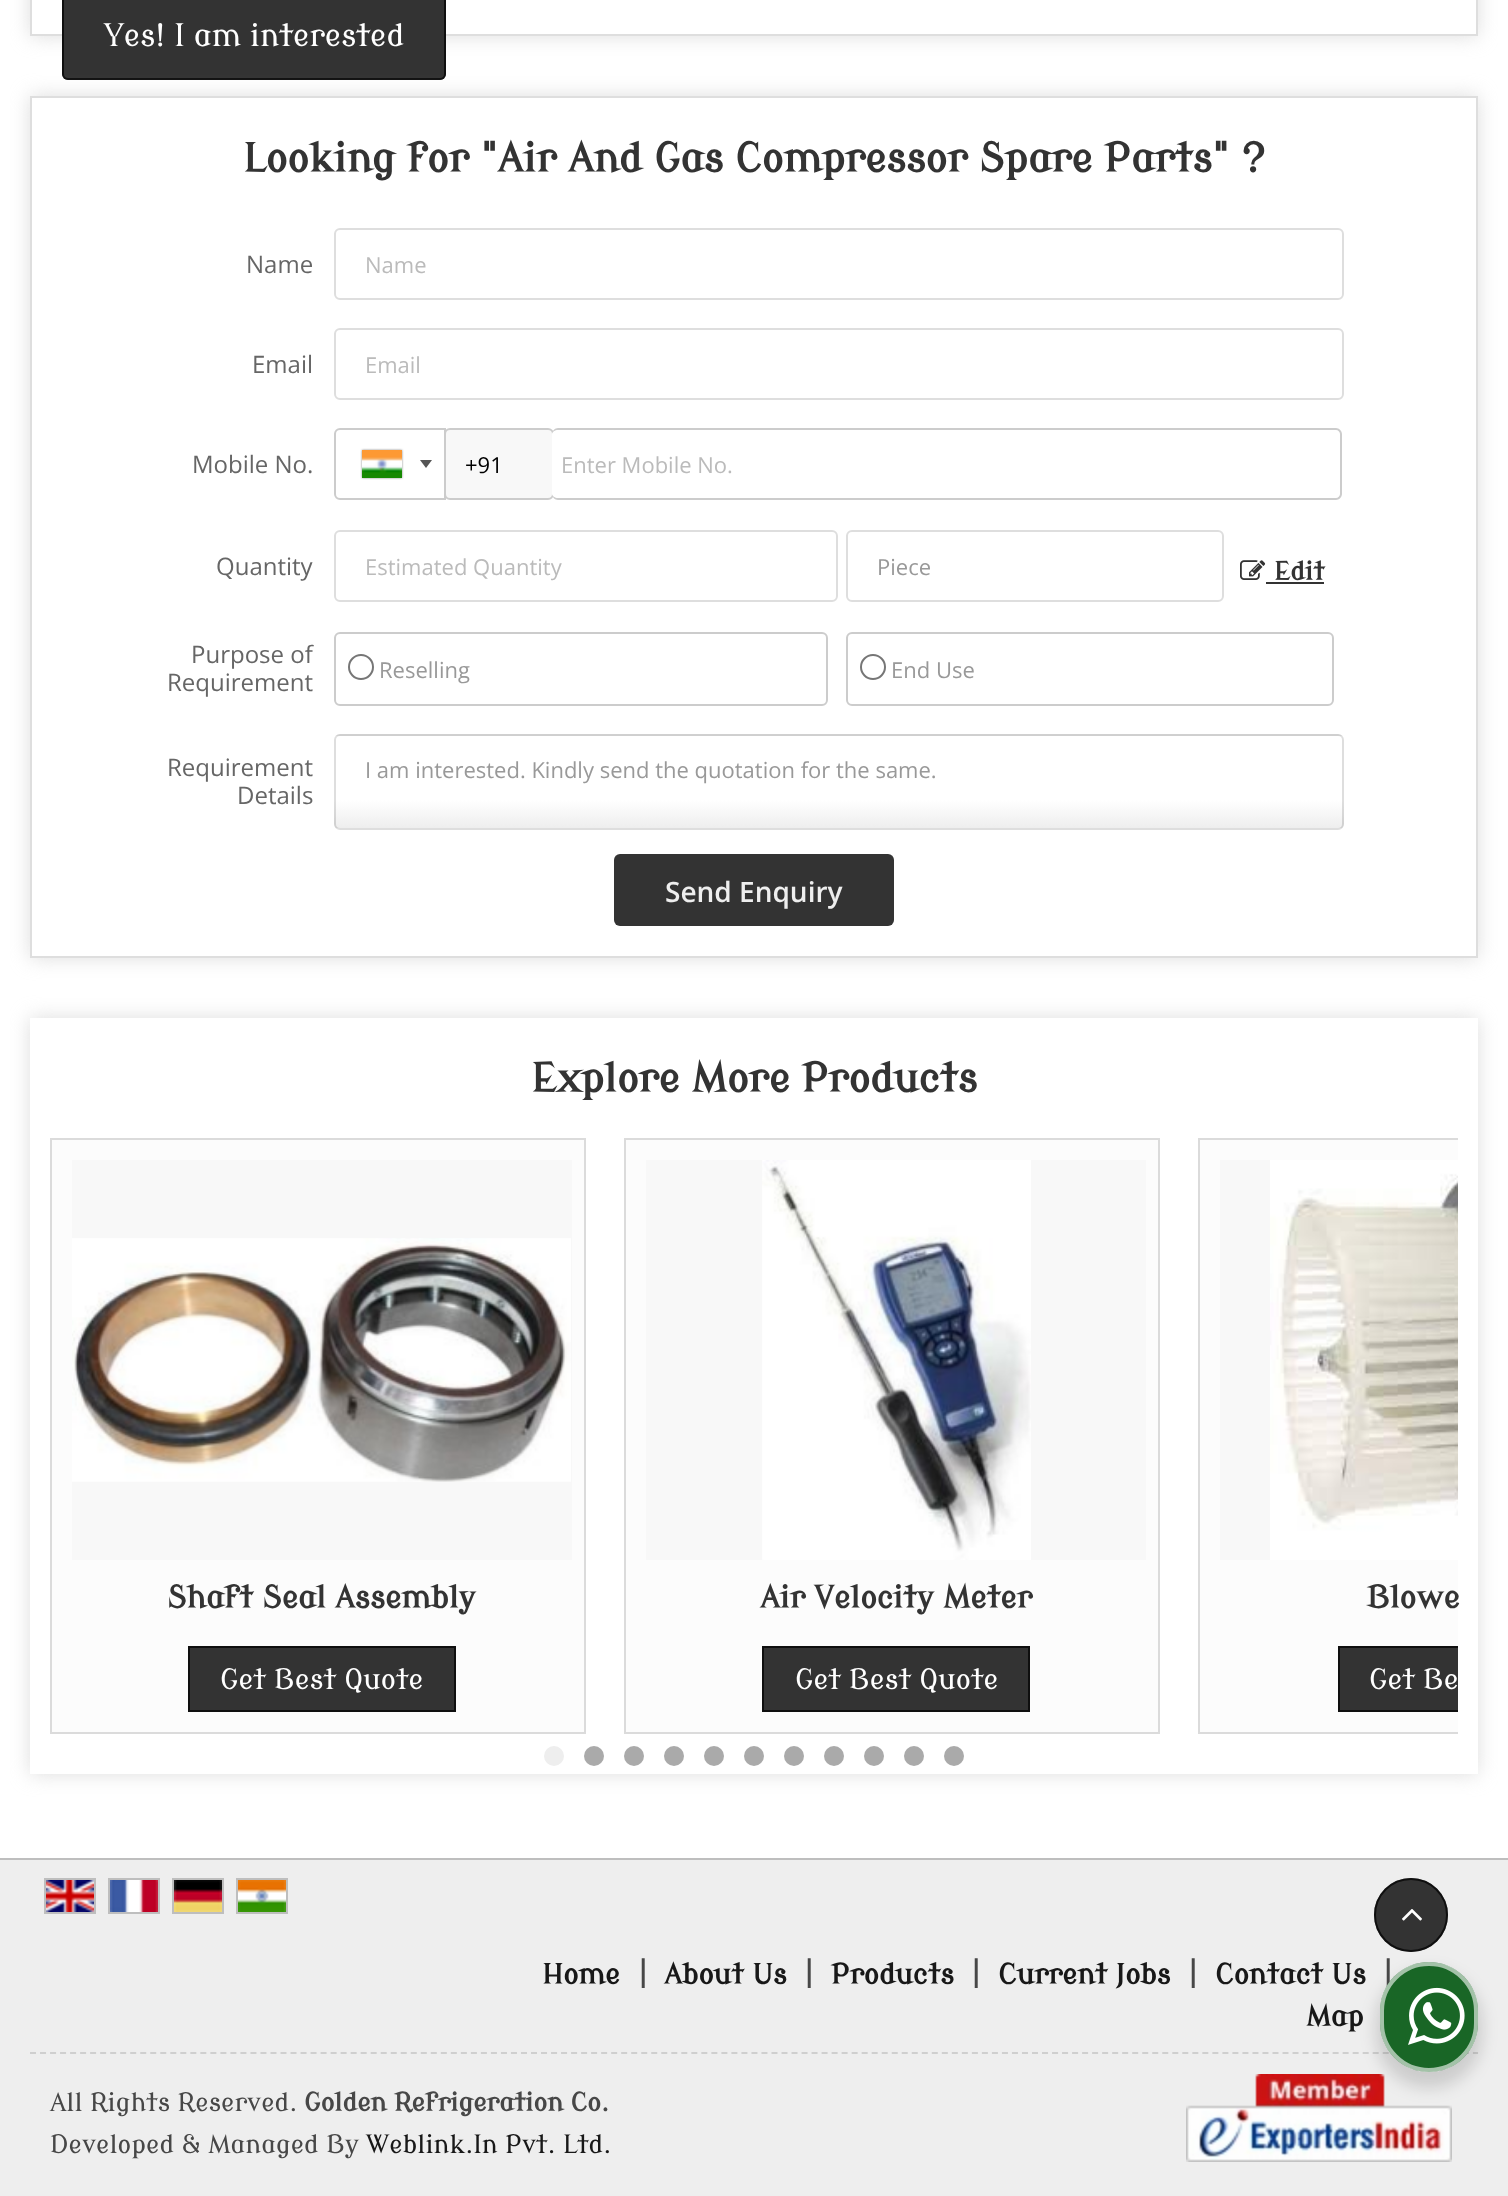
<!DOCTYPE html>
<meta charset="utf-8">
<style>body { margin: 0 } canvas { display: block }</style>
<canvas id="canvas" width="1508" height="2196"></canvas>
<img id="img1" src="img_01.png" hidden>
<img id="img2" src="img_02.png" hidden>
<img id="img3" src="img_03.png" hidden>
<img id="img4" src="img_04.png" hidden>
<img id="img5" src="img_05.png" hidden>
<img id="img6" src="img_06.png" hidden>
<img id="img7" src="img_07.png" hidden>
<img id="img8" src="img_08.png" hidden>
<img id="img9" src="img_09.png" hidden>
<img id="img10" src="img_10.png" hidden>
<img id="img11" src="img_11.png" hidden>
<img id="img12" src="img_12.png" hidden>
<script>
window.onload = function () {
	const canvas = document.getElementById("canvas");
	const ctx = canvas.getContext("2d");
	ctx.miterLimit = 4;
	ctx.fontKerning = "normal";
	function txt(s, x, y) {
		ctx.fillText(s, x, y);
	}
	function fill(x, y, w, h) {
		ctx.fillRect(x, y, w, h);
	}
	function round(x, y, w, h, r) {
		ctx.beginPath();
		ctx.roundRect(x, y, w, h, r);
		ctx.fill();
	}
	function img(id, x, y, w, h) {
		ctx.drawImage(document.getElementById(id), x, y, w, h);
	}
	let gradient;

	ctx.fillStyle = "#FFFFFF";
	fill(0, 0, 1508, 2196);
	ctx.save();
	ctx.beginPath();
	ctx.moveTo(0, 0);
	ctx.lineTo(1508, 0);
	ctx.lineTo(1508, 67);
	ctx.lineTo(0, 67);
	ctx.closePath();
	ctx.moveTo(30, -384);
	ctx.lineTo(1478, -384);
	ctx.lineTo(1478, 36);
	ctx.lineTo(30, 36);
	ctx.closePath();
	ctx.clip("evenodd");
	ctx.fillStyle = "rgba(204, 204, 204, 0.67)";
	ctx.filter = "blur(10px)";
	ctx.beginPath();
	ctx.rect(30, -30, 1448, 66);
	ctx.fill();
	ctx.filter = "none";
	ctx.restore();
	ctx.strokeStyle = "#DEDEDE";
	ctx.lineWidth = 2;
	ctx.strokeRect(31, -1, 1446, 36);
	ctx.fillStyle = "#333333";
	round(62, -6, 384, 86, 6);
	ctx.beginPath();
	ctx.roundRect(63, -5, 382, 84, 5);
	ctx.strokeStyle = "rgba(0, 0, 0, 0.7)";
	ctx.stroke();
	ctx.save();
	ctx.beginPath();
	ctx.moveTo(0, 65);
	ctx.lineTo(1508, 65);
	ctx.lineTo(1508, 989);
	ctx.lineTo(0, 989);
	ctx.closePath();
	ctx.moveTo(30, 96);
	ctx.lineTo(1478, 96);
	ctx.lineTo(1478, 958);
	ctx.lineTo(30, 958);
	ctx.closePath();
	ctx.clip("evenodd");
	ctx.fillStyle = "rgba(204, 204, 204, 0.67)";
	ctx.filter = "blur(10px)";
	ctx.beginPath();
	ctx.rect(30, 96, 1448, 862);
	ctx.fill();
	ctx.filter = "none";
	ctx.restore();
	ctx.strokeStyle = "#DEDEDE";
	ctx.strokeRect(31, 97, 1446, 860);
	ctx.beginPath();
	ctx.roundRect(335, 229, 1008, 70, 5);
	ctx.stroke();
	ctx.beginPath();
	ctx.roundRect(335, 329, 1008, 70, 5);
	ctx.stroke();
	ctx.beginPath();
	ctx.roundRect(335, 429, 110, 70, [5, 0, 0, 5]);
	ctx.strokeStyle = "#CCCCCC";
	ctx.stroke();
	ctx.fillStyle = "#888888";
	ctx.filter = "blur(1px)";
	ctx.beginPath();
	ctx.rect(362, 450, 40, 28);
	ctx.fill();
	ctx.filter = "none";
	img("img1", 362, 450, 40, 28);
	ctx.fillStyle = "#555555";
	ctx.beginPath();
	ctx.moveTo(420, 460);
	ctx.lineTo(432, 460);
	ctx.lineTo(426, 468);
	ctx.closePath();
	ctx.fill();
	ctx.fillStyle = "#F8F8F8";
	ctx.beginPath();
	ctx.roundRect(445, 429, 108, 70, 5);
	ctx.fill();
	ctx.stroke();
	ctx.fillStyle = "#FFFFFF";
	ctx.beginPath();
	ctx.moveTo(558, 430);
	ctx.lineTo(1336, 430);
	ctx.bezierCurveTo(1338, 430, 1340, 432, 1340, 434);
	ctx.lineTo(1340, 494);
	ctx.bezierCurveTo(1340, 496, 1338, 498, 1336, 498);
	ctx.lineTo(558, 498);
	ctx.bezierCurveTo(555, 498, 552, 496, 552, 494);
	ctx.lineTo(552, 434);
	ctx.bezierCurveTo(552, 432, 555, 430, 558, 430);
	ctx.closePath();
	ctx.fill();
	ctx.fillStyle = "#CCCCCC";
	ctx.beginPath();
	ctx.moveTo(558, 428);
	ctx.lineTo(1336, 428);
	ctx.bezierCurveTo(1339, 428, 1342, 431, 1342, 434);
	ctx.lineTo(1342, 494);
	ctx.bezierCurveTo(1342, 497, 1339, 500, 1336, 500);
	ctx.lineTo(558, 500);
	ctx.bezierCurveTo(555, 500, 552, 497, 552, 494);
	ctx.lineTo(552, 434);
	ctx.bezierCurveTo(552, 431, 555, 428, 558, 428);
	ctx.closePath();
	ctx.moveTo(558, 430);
	ctx.lineTo(1336, 430);
	ctx.bezierCurveTo(1338, 430, 1340, 432, 1340, 434);
	ctx.lineTo(1340, 494);
	ctx.bezierCurveTo(1340, 496, 1338, 498, 1336, 498);
	ctx.lineTo(558, 498);
	ctx.bezierCurveTo(555, 498, 552, 496, 552, 494);
	ctx.lineTo(552, 434);
	ctx.bezierCurveTo(552, 432, 555, 430, 558, 430);
	ctx.closePath();
	ctx.fill("evenodd");
	ctx.beginPath();
	ctx.roundRect(335, 531, 502, 70, 5);
	ctx.strokeStyle = "#DEDEDE";
	ctx.stroke();
	ctx.beginPath();
	ctx.roundRect(847, 531, 376, 70, 5);
	ctx.stroke();
	img("img2", 1240, 560, 26, 20);
	ctx.fillStyle = "#333333";
	fill(1266, 582, 58, 2);
	ctx.beginPath();
	ctx.roundRect(335, 633, 492, 72, 5);
	ctx.strokeStyle = "#CCCCCC";
	ctx.stroke();
	ctx.beginPath();
	ctx.arc(361, 667, 12, 0, Math.PI * 2);
	ctx.strokeStyle = "#767676";
	ctx.stroke();
	ctx.beginPath();
	ctx.roundRect(847, 633, 486, 72, 5);
	ctx.strokeStyle = "#CCCCCC";
	ctx.stroke();
	ctx.beginPath();
	ctx.arc(873, 667, 12, 0, Math.PI * 2);
	ctx.strokeStyle = "#767676";
	ctx.stroke();
	ctx.save();
	ctx.beginPath();
	ctx.roundRect(334, 734, 1010, 96, 6);
	ctx.clip();
	gradient = ctx.createLinearGradient(839, 644, 839, 736);
	gradient.addColorStop(0.7, "#FFFFFF");
	gradient.addColorStop(1, "#EEEEEE");
	ctx.fillStyle = gradient;
	fill(334, 734, 1010, 2);
	gradient = ctx.createLinearGradient(839, 736, 839, 828);
	gradient.addColorStop(0.7, "#FFFFFF");
	gradient.addColorStop(1, "#EEEEEE");
	ctx.fillStyle = gradient;
	fill(334, 736, 1010, 92);
	ctx.restore();
	ctx.beginPath();
	ctx.roundRect(335, 735, 1008, 94, 5);
	ctx.strokeStyle = "rgba(0, 0, 0, 0.13)";
	ctx.stroke();
	round(614, 854, 280, 72, 6);
	ctx.save();
	ctx.beginPath();
	ctx.moveTo(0, 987);
	ctx.lineTo(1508, 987);
	ctx.lineTo(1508, 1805);
	ctx.lineTo(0, 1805);
	ctx.closePath();
	ctx.moveTo(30, 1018);
	ctx.lineTo(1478, 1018);
	ctx.lineTo(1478, 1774);
	ctx.lineTo(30, 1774);
	ctx.closePath();
	ctx.clip("evenodd");
	ctx.fillStyle = "rgba(204, 204, 204, 0.67)";
	ctx.filter = "blur(10px)";
	ctx.beginPath();
	ctx.rect(30, 1018, 1448, 756);
	ctx.fill();
	ctx.filter = "none";
	ctx.restore();
	ctx.fillStyle = "#FCFCFC";
	ctx.beginPath();
	ctx.rect(51, 1139, 534, 594);
	ctx.fill();
	ctx.strokeStyle = "#DBDBDB";
	ctx.stroke();
	ctx.fillStyle = "#F8F8F8";
	fill(72, 1160, 500, 400);
	img("img3", 72, 1238, 499, 244);
	ctx.fillStyle = "#333333";
	ctx.beginPath();
	ctx.rect(189, 1647, 266, 64);
	ctx.fill();
	ctx.strokeStyle = "#0F0F0F";
	ctx.stroke();
	ctx.fillStyle = "#FCFCFC";
	ctx.beginPath();
	ctx.rect(625, 1139, 534, 594);
	ctx.fill();
	ctx.strokeStyle = "#DBDBDB";
	ctx.stroke();
	ctx.fillStyle = "#F8F8F8";
	fill(646, 1160, 500, 400);
	img("img4", 762, 1160, 269, 400);
	ctx.fillStyle = "#333333";
	ctx.beginPath();
	ctx.rect(763, 1647, 266, 64);
	ctx.fill();
	ctx.strokeStyle = "#0F0F0F";
	ctx.stroke();
	ctx.fillStyle = "#FCFCFC";
	fill(1200, 1140, 258, 592);
	ctx.save();
	ctx.beginPath();
	ctx.rect(50, 1138, 1408, 596);
	ctx.clip();
	ctx.strokeStyle = "#DBDBDB";
	ctx.strokeRect(1199, 1139, 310, 594);
	ctx.restore();
	ctx.fillStyle = "#F8F8F8";
	fill(1220, 1160, 50, 400);
	img("img5", 1270, 1160, 188, 400);
	ctx.fillStyle = "#333333";
	fill(1340, 1648, 118, 62);
	ctx.save();
	ctx.beginPath();
	ctx.rect(50, 1138, 1408, 596);
	ctx.clip();
	ctx.strokeRect(1339, 1647, 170, 64);
	ctx.restore();
	ctx.fillStyle = "#EEEEEE";
	ctx.beginPath();
	ctx.arc(554, 1756, 10, 0, Math.PI * 2);
	ctx.fill();
	ctx.fillStyle = "#AAAAAA";
	ctx.beginPath();
	ctx.arc(594, 1756, 10, 0, Math.PI * 2);
	ctx.fill();
	ctx.beginPath();
	ctx.arc(634, 1756, 10, 0, Math.PI * 2);
	ctx.fill();
	ctx.beginPath();
	ctx.arc(674, 1756, 10, 0, Math.PI * 2);
	ctx.fill();
	ctx.beginPath();
	ctx.arc(714, 1756, 10, 0, Math.PI * 2);
	ctx.fill();
	ctx.beginPath();
	ctx.arc(754, 1756, 10, 0, Math.PI * 2);
	ctx.fill();
	ctx.beginPath();
	ctx.arc(794, 1756, 10, 0, Math.PI * 2);
	ctx.fill();
	ctx.beginPath();
	ctx.arc(834, 1756, 10, 0, Math.PI * 2);
	ctx.fill();
	ctx.beginPath();
	ctx.arc(874, 1756, 10, 0, Math.PI * 2);
	ctx.fill();
	ctx.beginPath();
	ctx.arc(914, 1756, 10, 0, Math.PI * 2);
	ctx.fill();
	ctx.beginPath();
	ctx.arc(954, 1756, 10, 0, Math.PI * 2);
	ctx.fill();
	ctx.fillStyle = "#EEEEEE";
	fill(0, 1860, 1508, 336);
	ctx.fillStyle = "#BEBEBE";
	fill(0, 1858, 1508, 2);
	ctx.strokeStyle = "#BEBEBE";
	ctx.strokeRect(45, 1879, 50, 34);
	ctx.strokeRect(109, 1879, 50, 34);
	ctx.strokeRect(173, 1879, 50, 34);
	ctx.strokeRect(237, 1879, 50, 34);
	img("img6", 46, 1880, 48, 32);
	img("img7", 110, 1880, 48, 32);
	img("img8", 174, 1880, 48, 32);
	img("img9", 238, 1880, 48, 32);
	ctx.beginPath();
	ctx.moveTo(30, 2053);
	ctx.lineTo(1478, 2053);
	ctx.strokeStyle = "#CFCFCF";
	ctx.setLineDash([6, 4.02]);
	ctx.stroke();
	img("img10", 1186, 2074, 266, 88);
	ctx.fillStyle = "#333333";
	ctx.beginPath();
	ctx.arc(1411, 1915, 37, 0, Math.PI * 2);
	ctx.fill();
	ctx.beginPath();
	ctx.arc(1411, 1915, 36, 0, Math.PI * 2);
	ctx.strokeStyle = "rgba(0, 0, 0, 0.7)";
	ctx.setLineDash([]);
	ctx.stroke();
	img("img11", 1402, 1909, 20, 12);
	ctx.fillStyle = "rgba(0, 0, 0, 0.14)";
	ctx.filter = "blur(8px)";
	ctx.beginPath();
	ctx.roundRect(1376, 1970, 106, 118, 53);
	ctx.fill();
	ctx.filter = "none";
	ctx.font = "30.75px Modern Antiqua";
	ctx.fillStyle = "#FFFFFF";
	txt("Yes! I am interested", 104, 46);
	ctx.font = "bold 40px Modern Antiqua";
	ctx.fillStyle = "#333333";
	txt("Looking for \"Air And Gas Compressor Spare Parts\" ?", 243, 172);
	ctx.font = "24px Open Sans";
	ctx.fillStyle = "#666666";
	txt("Name", 246, 273);
	ctx.font = "22px Open Sans";
	ctx.fillStyle = "#BBBBBB";
	txt("Name", 365, 273);
	ctx.font = "24px Open Sans";
	ctx.fillStyle = "#666666";
	txt("Email", 252, 373);
	ctx.font = "22px Open Sans";
	ctx.fillStyle = "#BBBBBB";
	txt("Email", 365, 373);
	ctx.font = "24px Open Sans";
	ctx.fillStyle = "#666666";
	txt("Mobile No.", 192, 473);
	ctx.font = "22px Open Sans";
	ctx.fillStyle = "#000000";
	txt("+91", 465, 473);
	ctx.fillStyle = "#BBBBBB";
	txt("Enter Mobile No.", 561, 473);
	ctx.font = "24px Open Sans";
	ctx.fillStyle = "#666666";
	txt("Quantity", 216, 575);
	ctx.font = "22px Open Sans";
	ctx.fillStyle = "#BBBBBB";
	txt("Estimated Quantity", 365, 575);
	ctx.fillStyle = "#999999";
	txt("Piece", 877, 575);
	ctx.font = "bold 25.25px Modern Antiqua";
	ctx.fillStyle = "#333333";
	txt("Edit", 1274, 580);
	ctx.font = "24px Open Sans";
	ctx.fillStyle = "#666666";
	txt("Purpose of", 191, 663);
	txt("Requirement", 167, 691);
	ctx.font = "22px Open Sans";
	ctx.fillStyle = "#999999";
	txt("Reselling", 379, 678);
	txt("End Use", 891, 678);
	ctx.font = "24px Open Sans";
	ctx.fillStyle = "#666666";
	txt("Requirement", 167, 776);
	txt("Details", 237, 804);
	ctx.font = "22px Open Sans";
	ctx.fillStyle = "#999999";
	txt("I am interested. Kindly send the quotation for the same.", 365, 778);
	ctx.font = "600 28px Open Sans";
	ctx.fillStyle = "#EEEEEE";
	txt("Send Enquiry", 665, 902);
	ctx.font = "bold 40px Modern Antiqua";
	ctx.fillStyle = "#333333";
	txt("Explore More Products", 531, 1092);
	ctx.font = "bold 30.75px Modern Antiqua";
	txt("Shaft Seal Assembly", 167, 1608);
	ctx.font = "28px Modern Antiqua";
	ctx.fillStyle = "#FFFFFF";
	txt("Get Best Quote", 220, 1689);
	ctx.font = "bold 30.75px Modern Antiqua";
	ctx.fillStyle = "#333333";
	txt("Air Velocity Meter", 760, 1608);
	ctx.font = "28px Modern Antiqua";
	ctx.fillStyle = "#FFFFFF";
	txt("Get Best Quote", 795, 1689);
	ctx.font = "bold 30.75px Modern Antiqua";
	ctx.fillStyle = "#333333";
	txt("Blowe", 1367, 1608);
	ctx.font = "28px Modern Antiqua";
	ctx.fillStyle = "#FFFFFF";
	txt("Get Be", 1369, 1689);
	ctx.font = "bold 28px Modern Antiqua";
	ctx.fillStyle = "#181818";
	txt("Home", 542, 1984);
	ctx.fillStyle = "#474747";
	txt("|", 639, 1984);
	ctx.fillStyle = "#181818";
	txt("About Us", 664, 1984);
	ctx.fillStyle = "#474747";
	txt("|", 805, 1984);
	ctx.fillStyle = "#181818";
	txt("Products", 831, 1984);
	ctx.fillStyle = "#474747";
	txt("|", 972, 1984);
	ctx.fillStyle = "#181818";
	txt("Current Jobs", 998, 1984);
	ctx.fillStyle = "#474747";
	txt("|", 1189, 1984);
	ctx.fillStyle = "#181818";
	txt("Contact Us", 1215, 1984);
	ctx.fillStyle = "#474747";
	txt("|", 1384, 1984);
	ctx.fillStyle = "#181818";
	txt("Map", 1306, 2026);
	ctx.font = "25.25px Modern Antiqua";
	ctx.fillStyle = "#474747";
	txt("All Rights Reserved.", 50, 2111);
	ctx.font = "bold 25.25px Modern Antiqua";
	txt("Golden Refrigeration Co.", 304, 2111);
	ctx.font = "25.25px Modern Antiqua";
	txt("Developed & Managed By", 50, 2153);
	ctx.fillStyle = "#181818";
	txt("Weblink.In Pvt. Ltd.", 366, 2153);
	ctx.fillStyle = "#196626";
	round(1380, 1962, 98, 110, 49);
	ctx.beginPath();
	ctx.roundRect(1382, 1964, 94, 106, 47);
	ctx.strokeStyle = "rgba(255, 255, 255, 0.6)";
	ctx.lineWidth = 4;
	ctx.stroke();
	img("img12", 1408, 1987, 57, 58);
};
</script>
